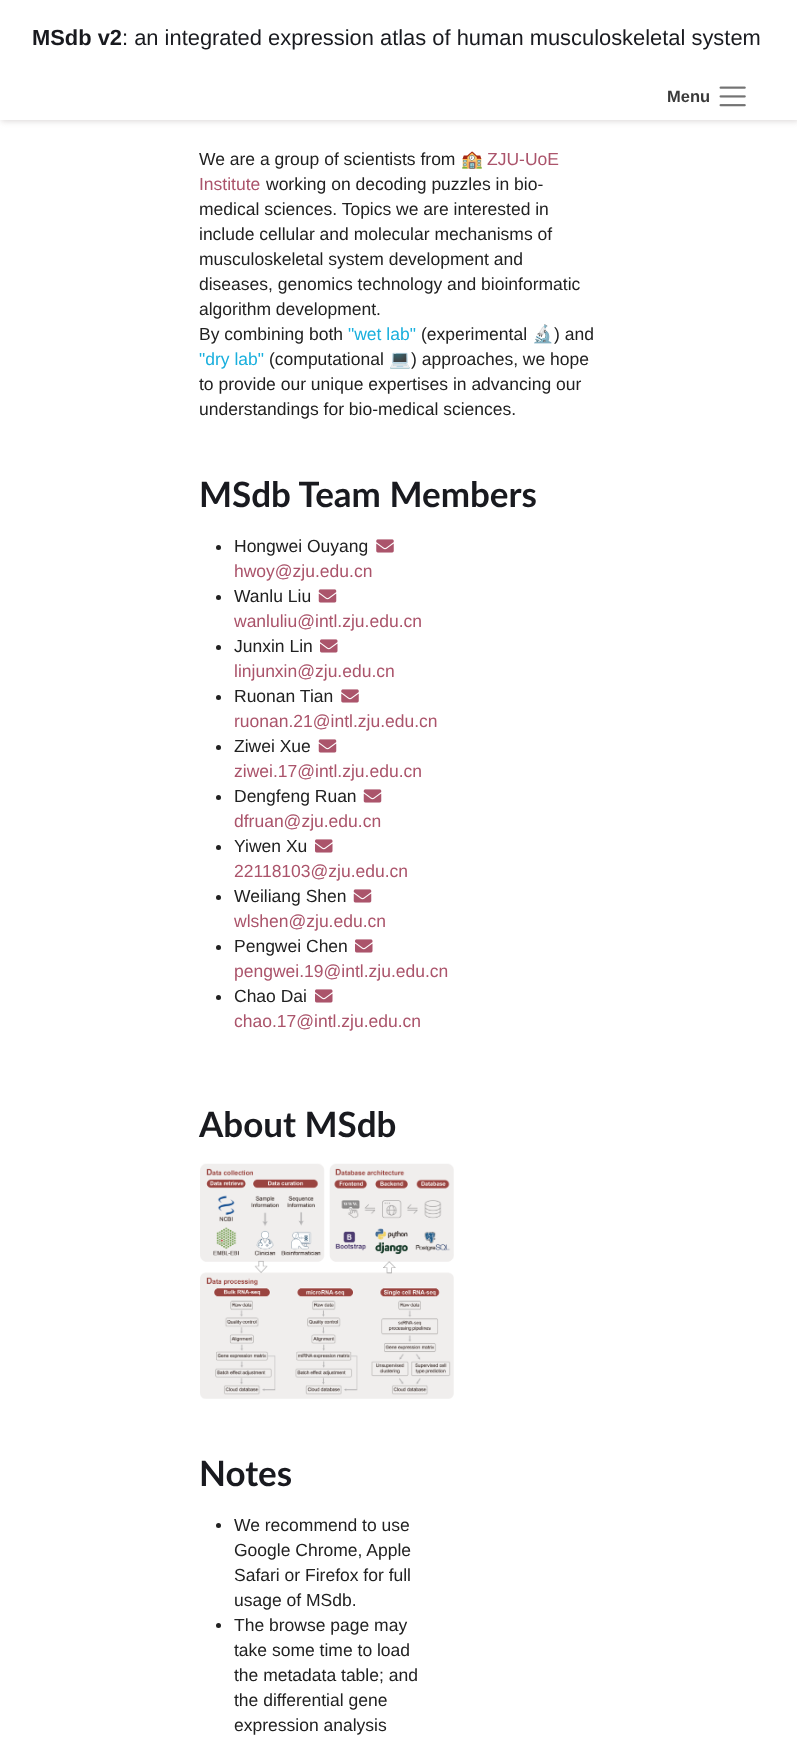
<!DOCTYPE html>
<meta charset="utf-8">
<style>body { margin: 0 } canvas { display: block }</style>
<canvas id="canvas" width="797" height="1738"></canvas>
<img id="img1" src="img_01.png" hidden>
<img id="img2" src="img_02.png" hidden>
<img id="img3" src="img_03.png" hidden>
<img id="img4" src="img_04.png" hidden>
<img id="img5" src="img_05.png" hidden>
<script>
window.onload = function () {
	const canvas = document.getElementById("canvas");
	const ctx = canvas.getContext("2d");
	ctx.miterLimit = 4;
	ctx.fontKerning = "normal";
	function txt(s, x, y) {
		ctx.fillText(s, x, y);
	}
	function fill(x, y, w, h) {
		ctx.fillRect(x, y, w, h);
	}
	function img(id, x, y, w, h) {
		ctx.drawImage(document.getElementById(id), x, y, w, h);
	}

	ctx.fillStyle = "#FFFFFF";
	fill(0, 0, 797, 1738);
	ctx.fillStyle = "#DAD6D6";
	ctx.filter = "blur(3px)";
	ctx.beginPath();
	ctx.rect(1, 1, 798, 120);
	ctx.fill();
	ctx.filter = "none";
	ctx.fillStyle = "#FFFFFF";
	fill(0, 0, 797, 120);
	img("img1", 719, 86, 27, 21);
	ctx.fillStyle = "#212121";
	ctx.beginPath();
	ctx.arc(218.5, 547.5, 2.5, 0, Math.PI * 2);
	ctx.fill();
	img("img2", 376, 539, 18, 14);
	ctx.beginPath();
	ctx.arc(218.5, 597.5, 2.5, 0, Math.PI * 2);
	ctx.fill();
	img("img3", 318, 589, 19, 14);
	ctx.beginPath();
	ctx.arc(218.5, 647.5, 2.5, 0, Math.PI * 2);
	ctx.fill();
	img("img4", 320, 639, 18, 14);
	ctx.beginPath();
	ctx.arc(218.5, 697.5, 2.5, 0, Math.PI * 2);
	ctx.fill();
	img("img2", 341, 689, 18, 14);
	ctx.beginPath();
	ctx.arc(218.5, 747.5, 2.5, 0, Math.PI * 2);
	ctx.fill();
	img("img3", 318, 739, 19, 14);
	ctx.beginPath();
	ctx.arc(218.5, 797.5, 2.5, 0, Math.PI * 2);
	ctx.fill();
	img("img3", 363, 789, 19, 14);
	ctx.beginPath();
	ctx.arc(218.5, 847.5, 2.5, 0, Math.PI * 2);
	ctx.fill();
	img("img4", 315, 839, 18, 14);
	ctx.beginPath();
	ctx.arc(218.5, 897.5, 2.5, 0, Math.PI * 2);
	ctx.fill();
	img("img3", 353, 889, 19, 14);
	ctx.beginPath();
	ctx.arc(218.5, 947.5, 2.5, 0, Math.PI * 2);
	ctx.fill();
	img("img4", 355, 939, 18, 14);
	ctx.beginPath();
	ctx.arc(218.5, 997.5, 2.5, 0, Math.PI * 2);
	ctx.fill();
	img("img4", 315, 989, 18, 14);
	img("img5", 200, 1163, 254, 236);
	ctx.beginPath();
	ctx.arc(218.5, 1525.5, 2.5, 0, Math.PI * 2);
	ctx.fill();
	ctx.beginPath();
	ctx.arc(218.5, 1625.5, 2.5, 0, Math.PI * 2);
	ctx.fill();
	ctx.font = "bold 21.9px Liberation Sans";
	ctx.fillStyle = "#191A1F";
	txt("MSdb v2", 32, 45);
	ctx.font = "21.9px Liberation Sans";
	txt(": an integrated expression atlas of human musculoskeletal system", 122, 45);
	ctx.font = "bold 16.5px Liberation Sans";
	ctx.fillStyle = "#3A3A3A";
	txt("Menu", 667, 102);
	ctx.font = "17.5px Liberation Sans";
	ctx.fillStyle = "#212121";
	txt("We are a group of scientists from", 199, 165);
	ctx.font = "17.5px Noto Color Emoji";
	ctx.fillStyle = "#AB546B";
	txt("🏫", 461, 165);
	ctx.font = "17.5px Liberation Sans";
	txt("ZJU-UoE", 487, 165);
	txt("Institute", 199, 190);
	ctx.fillStyle = "#212121";
	txt("working on decoding puzzles in bio-", 266, 190);
	txt("medical sciences. Topics we are interested in", 199, 215);
	txt("include cellular and molecular mechanisms of", 199, 240);
	txt("musculoskeletal system development and", 199, 265);
	txt("diseases, genomics technology and bioinformatic", 199, 290);
	txt("algorithm development.", 199, 315);
	txt("By combining both", 199, 340);
	ctx.fillStyle = "#19AFDD";
	txt("\"wet lab\"", 348, 340);
	ctx.fillStyle = "#212121";
	txt("(experimental", 421, 340);
	ctx.font = "17.5px Noto Color Emoji";
	txt("🔬", 532, 340);
	ctx.font = "17.5px Liberation Sans";
	txt(") and", 554, 340);
	ctx.fillStyle = "#19AFDD";
	txt("\"dry lab\"", 199, 365);
	ctx.fillStyle = "#212121";
	txt("(computational", 269, 365);
	ctx.font = "17.5px Noto Color Emoji";
	txt("💻", 389, 365);
	ctx.font = "17.5px Liberation Sans";
	txt(") approaches, we hope", 411, 365);
	txt("to provide our unique expertises in advancing our", 199, 390);
	txt("understandings for bio-medical sciences.", 199, 415);
	ctx.font = "bold 35px Lato";
	ctx.fillStyle = "#191A1F";
	txt("MSdb Team Members", 199, 507);
	ctx.font = "17.5px Liberation Sans";
	ctx.fillStyle = "#212121";
	txt("Hongwei Ouyang", 234, 552);
	ctx.fillStyle = "#AB546B";
	txt("hwoy@zju.edu.cn", 234, 577);
	ctx.fillStyle = "#212121";
	txt("Wanlu Liu", 234, 602);
	ctx.fillStyle = "#AB546B";
	txt("wanluliu@intl.zju.edu.cn", 234, 627);
	ctx.fillStyle = "#212121";
	txt("Junxin Lin", 234, 652);
	ctx.fillStyle = "#AB546B";
	txt("linjunxin@zju.edu.cn", 234, 677);
	ctx.fillStyle = "#212121";
	txt("Ruonan Tian", 234, 702);
	ctx.fillStyle = "#AB546B";
	txt("ruonan.21@intl.zju.edu.cn", 234, 727);
	ctx.fillStyle = "#212121";
	txt("Ziwei Xue", 234, 752);
	ctx.fillStyle = "#AB546B";
	txt("ziwei.17@intl.zju.edu.cn", 234, 777);
	ctx.fillStyle = "#212121";
	txt("Dengfeng Ruan", 234, 802);
	ctx.fillStyle = "#AB546B";
	txt("dfruan@zju.edu.cn", 234, 827);
	ctx.fillStyle = "#212121";
	txt("Yiwen Xu", 234, 852);
	ctx.fillStyle = "#AB546B";
	txt("22118103@zju.edu.cn", 234, 877);
	ctx.fillStyle = "#212121";
	txt("Weiliang Shen", 234, 902);
	ctx.fillStyle = "#AB546B";
	txt("wlshen@zju.edu.cn", 234, 927);
	ctx.fillStyle = "#212121";
	txt("Pengwei Chen", 234, 952);
	ctx.fillStyle = "#AB546B";
	txt("pengwei.19@intl.zju.edu.cn", 234, 977);
	ctx.fillStyle = "#212121";
	txt("Chao Dai", 234, 1002);
	ctx.fillStyle = "#AB546B";
	txt("chao.17@intl.zju.edu.cn", 234, 1027);
	ctx.font = "bold 35px Lato";
	ctx.fillStyle = "#191A1F";
	txt("About MSdb", 199, 1137);
	txt("Notes", 199, 1486);
	ctx.font = "17.5px Liberation Sans";
	ctx.fillStyle = "#212121";
	txt("We recommend to use", 234, 1531);
	txt("Google Chrome, Apple", 234, 1556);
	txt("Safari or Firefox for full", 234, 1581);
	txt("usage of MSdb.", 234, 1606);
	txt("The browse page may", 234, 1631);
	txt("take some time to load", 234, 1656);
	txt("the metadata table; and", 234, 1681);
	txt("the differential gene", 234, 1706);
	txt("expression analysis", 234, 1731);
};
</script>
